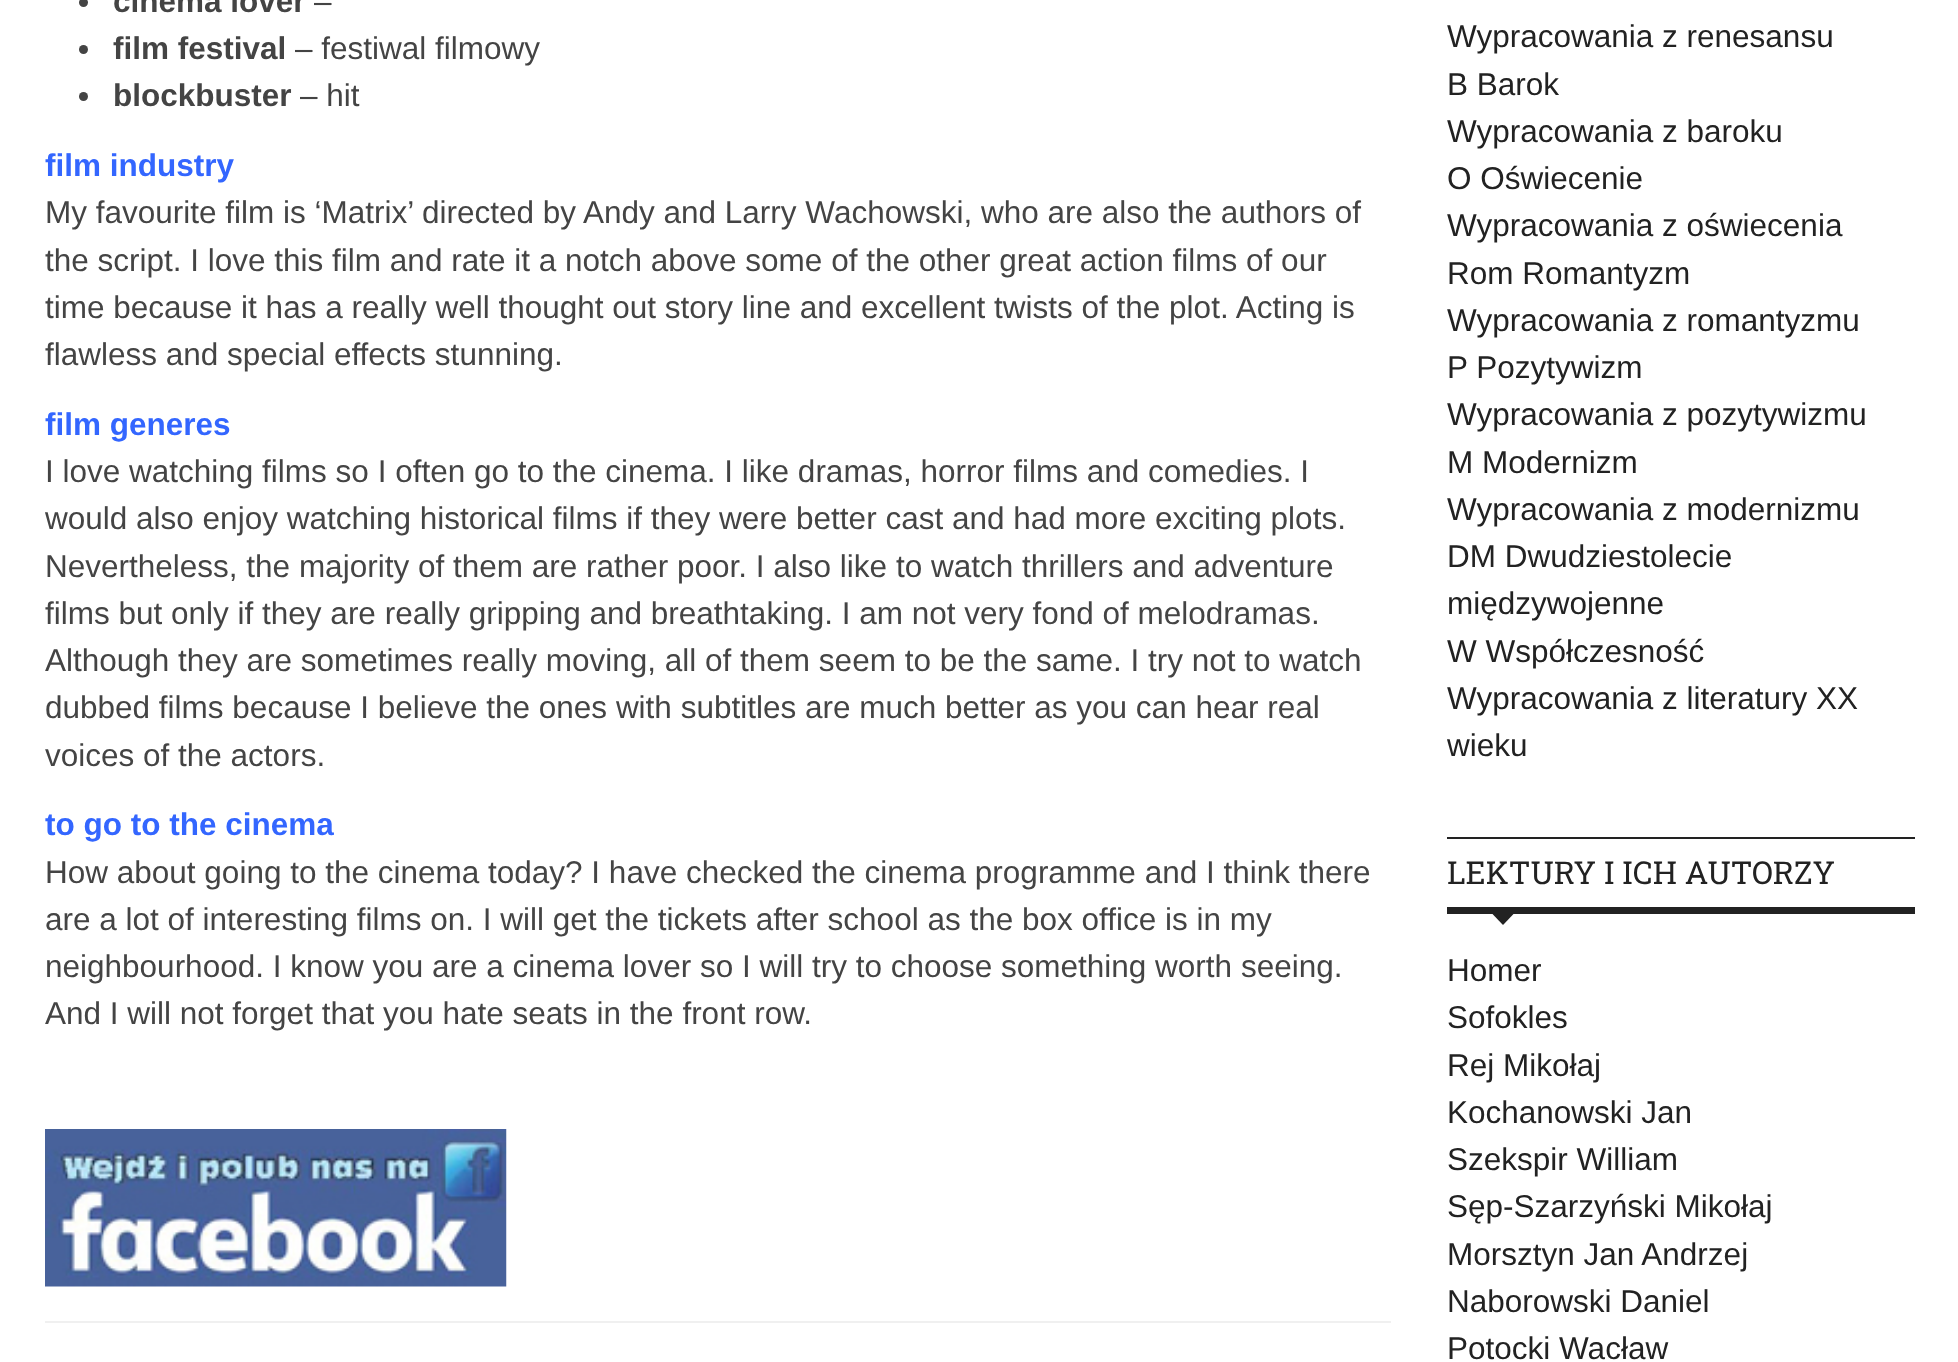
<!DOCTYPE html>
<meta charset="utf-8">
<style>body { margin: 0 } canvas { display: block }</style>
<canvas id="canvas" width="1958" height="1362"></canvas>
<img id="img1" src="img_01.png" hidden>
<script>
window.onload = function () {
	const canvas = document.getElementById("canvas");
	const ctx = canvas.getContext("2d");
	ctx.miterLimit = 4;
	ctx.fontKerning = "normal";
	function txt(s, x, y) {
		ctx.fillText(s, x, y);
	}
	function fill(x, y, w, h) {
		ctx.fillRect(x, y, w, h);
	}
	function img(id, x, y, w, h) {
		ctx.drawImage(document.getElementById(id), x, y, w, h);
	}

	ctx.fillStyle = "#FFFFFF";
	fill(0, 0, 1958, 1362);
	ctx.fillStyle = "#F0F0F0";
	fill(45, 1321, 1346, 2);
	ctx.fillStyle = "#444444";
	ctx.beginPath();
	ctx.arc(83.5, 2.5, 4.5, 0, Math.PI * 2);
	ctx.fill();
	ctx.beginPath();
	ctx.arc(83.5, 49.5, 4.5, 0, Math.PI * 2);
	ctx.fill();
	ctx.beginPath();
	ctx.arc(83.5, 96.5, 4.5, 0, Math.PI * 2);
	ctx.fill();
	img("img1", 45, 1129, 462, 158);
	ctx.fillStyle = "#222222";
	fill(1447, 837, 468, 2);
	fill(1447, 907, 468, 7);
	ctx.beginPath();
	ctx.moveTo(1492, 913.5);
	ctx.lineTo(1514, 913.5);
	ctx.lineTo(1503, 925);
	ctx.closePath();
	ctx.fill();
	ctx.font = "bold 31.5px Liberation Sans";
	ctx.fillStyle = "#444444";
	txt("cinema lover", 113, 12);
	ctx.font = "31.5px Liberation Sans";
	txt("–", 314, 12);
	ctx.font = "bold 31.5px Liberation Sans";
	txt("film festival", 113, 59);
	ctx.font = "31.5px Liberation Sans";
	txt("– festiwal filmowy", 295, 59);
	ctx.font = "bold 31.5px Liberation Sans";
	txt("blockbuster", 113, 106);
	ctx.font = "31.5px Liberation Sans";
	txt("– hit", 300, 106);
	ctx.font = "bold 31.5px Liberation Sans";
	ctx.fillStyle = "#3366FF";
	txt("film industry", 45, 176);
	ctx.font = "31.5px Liberation Sans";
	ctx.fillStyle = "#444444";
	txt("My favourite film is ‘Matrix’ directed by Andy and Larry Wachowski, who are also the authors of", 45, 223);
	txt("the script. I love this film and rate it a notch above some of the other great action films of our", 45, 271);
	txt("time because it has a really well thought out story line and excellent twists of the plot. Acting is", 45, 318);
	txt("flawless and special effects stunning.", 45, 365);
	ctx.font = "bold 31.5px Liberation Sans";
	ctx.fillStyle = "#3366FF";
	txt("film generes", 45, 435);
	ctx.font = "31.5px Liberation Sans";
	ctx.fillStyle = "#444444";
	txt("I love watching films so I often go to the cinema. I like dramas, horror films and comedies. I", 45, 482);
	txt("would also enjoy watching historical films if they were better cast and had more exciting plots.", 45, 529);
	txt("Nevertheless, the majority of them are rather poor. I also like to watch thrillers and adventure", 45, 577);
	txt("films but only if they are really gripping and breathtaking. I am not very fond of melodramas.", 45, 624);
	txt("Although they are sometimes really moving, all of them seem to be the same. I try not to watch", 45, 671);
	txt("dubbed films because I believe the ones with subtitles are much better as you can hear real", 45, 718);
	txt("voices of the actors.", 45, 766);
	ctx.font = "bold 31.5px Liberation Sans";
	ctx.fillStyle = "#3366FF";
	txt("to go to the cinema", 45, 835);
	ctx.font = "31.5px Liberation Sans";
	ctx.fillStyle = "#444444";
	txt("How about going to the cinema today? I have checked the cinema programme and I think there", 45, 883);
	txt("are a lot of interesting films on. I will get the tickets after school as the box office is in my", 45, 930);
	txt("neighbourhood. I know you are a cinema lover so I will try to choose something worth seeing.", 45, 977);
	txt("And I will not forget that you hate seats in the front row.", 45, 1024);
	ctx.fillStyle = "#222222";
	txt("Wypracowania z renesansu", 1447, 47);
	txt("B Barok", 1447, 95);
	txt("Wypracowania z baroku", 1447, 142);
	txt("O Oświecenie", 1447, 189);
	txt("Wypracowania z oświecenia", 1447, 236);
	txt("Rom Romantyzm", 1447, 284);
	txt("Wypracowania z romantyzmu", 1447, 331);
	txt("P Pozytywizm", 1447, 378);
	txt("Wypracowania z pozytywizmu", 1447, 425);
	txt("M Modernizm", 1447, 473);
	txt("Wypracowania z modernizmu", 1447, 520);
	txt("DM Dwudziestolecie", 1447, 567);
	txt("międzywojenne", 1447, 614);
	txt("W Współczesność", 1447, 662);
	txt("Wypracowania z literatury XX", 1447, 709);
	txt("wieku", 1447, 756);
	ctx.font = "31.5px Roboto Slab";
	txt("LEKTURY I ICH AUTORZY", 1447, 884);
	ctx.font = "31.5px Liberation Sans";
	txt("Homer", 1447, 981);
	txt("Sofokles", 1447, 1028);
	txt("Rej Mikołaj", 1447, 1076);
	txt("Kochanowski Jan", 1447, 1123);
	txt("Szekspir William", 1447, 1170);
	txt("Sęp-Szarzyński Mikołaj", 1447, 1217);
	txt("Morsztyn Jan Andrzej", 1447, 1265);
	txt("Naborowski Daniel", 1447, 1312);
	txt("Potocki Wacław", 1447, 1359);
};
</script>
